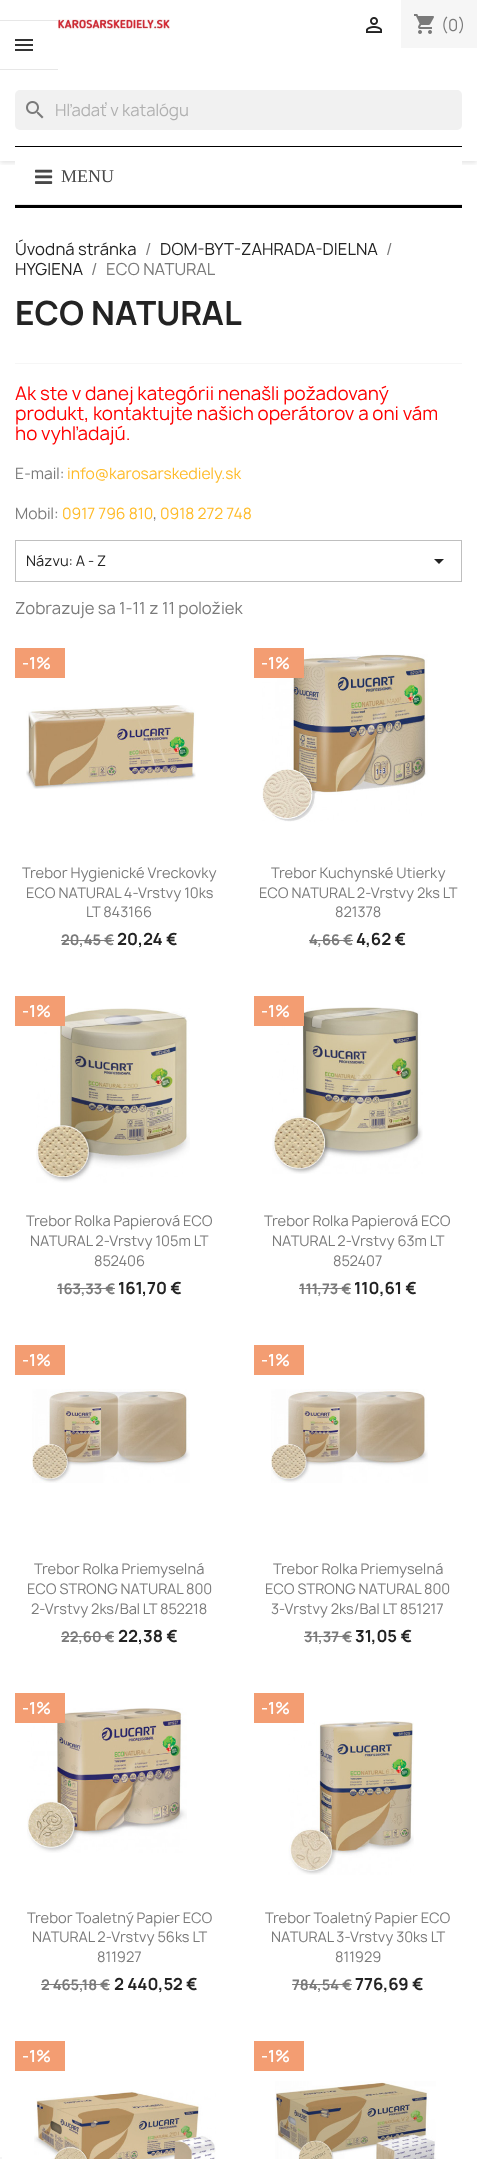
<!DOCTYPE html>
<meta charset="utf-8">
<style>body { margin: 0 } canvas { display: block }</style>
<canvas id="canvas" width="477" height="2159"></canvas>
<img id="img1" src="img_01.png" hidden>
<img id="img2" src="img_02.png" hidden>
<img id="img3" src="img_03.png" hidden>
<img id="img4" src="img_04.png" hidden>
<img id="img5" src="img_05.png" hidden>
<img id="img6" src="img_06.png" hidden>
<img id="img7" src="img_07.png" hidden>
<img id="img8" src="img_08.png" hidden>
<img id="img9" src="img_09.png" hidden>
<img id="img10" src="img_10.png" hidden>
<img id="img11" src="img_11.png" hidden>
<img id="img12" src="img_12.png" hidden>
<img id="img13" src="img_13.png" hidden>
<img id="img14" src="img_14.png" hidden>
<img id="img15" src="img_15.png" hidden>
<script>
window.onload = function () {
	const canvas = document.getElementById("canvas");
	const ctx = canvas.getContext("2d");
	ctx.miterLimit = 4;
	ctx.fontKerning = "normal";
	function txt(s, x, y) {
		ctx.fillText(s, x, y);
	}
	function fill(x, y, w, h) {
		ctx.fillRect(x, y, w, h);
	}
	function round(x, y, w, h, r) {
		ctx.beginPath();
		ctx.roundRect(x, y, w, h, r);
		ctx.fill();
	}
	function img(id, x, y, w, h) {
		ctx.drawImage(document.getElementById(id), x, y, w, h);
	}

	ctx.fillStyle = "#FFFFFF";
	fill(0, 0, 477, 2159);
	ctx.save();
	ctx.beginPath();
	ctx.rect(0, 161, 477, 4);
	ctx.clip();
	ctx.fillStyle = "rgba(0, 0, 0, 0.11)";
	ctx.filter = "blur(2.5px)";
	ctx.beginPath();
	ctx.rect(0, 2, 477, 161);
	ctx.fill();
	ctx.filter = "none";
	ctx.restore();
	ctx.fillStyle = "#E7E7E7";
	fill(0, 20, 58, 1);
	fill(0, 69, 58, 1);
	ctx.fillStyle = "#333333";
	fill(15, 39, 18, 2);
	fill(15, 44, 18, 2);
	fill(15, 49, 18, 2);
	img("img1", 58, 19, 112, 11);
	img("img2", 366, 17, 16, 16);
	ctx.fillStyle = "#F6F6F6";
	fill(401, 0, 76, 48);
	img("img3", 414, 14, 20, 20);
	ctx.fillStyle = "#F1F1F1";
	round(15, 90, 447, 40, 5);
	img("img4", 26, 101, 18, 18);
	ctx.fillStyle = "#000000";
	fill(15, 146, 447, 1);
	ctx.fillStyle = "#FFFFFF";
	fill(15, 161, 447, 5);
	ctx.fillStyle = "#E9E9E9";
	fill(15, 204, 447, 1);
	img("img5", 35, 169, 18, 15);
	ctx.fillStyle = "#000000";
	fill(15, 205, 447, 3);
	ctx.fillStyle = "#F6F6F6";
	fill(15, 363, 447, 1);
	ctx.strokeStyle = "#BFBFBF";
	ctx.strokeRect(15.5, 540.5, 446, 41);
	ctx.fillStyle = "#232323";
	ctx.beginPath();
	ctx.moveTo(434, 559);
	ctx.lineTo(444, 559);
	ctx.lineTo(439, 564);
	ctx.closePath();
	ctx.fill();
	ctx.fillStyle = "#F39D72";
	fill(15, 648, 50, 30);
	img("img6", 26, 705, 170, 84);
	ctx.fillStyle = "#7A7A7A";
	fill(61, 940, 53, 1);
	img("img7", 262, 654, 166, 168);
	ctx.fillStyle = "#F39D72";
	fill(254, 648, 50, 30);
	ctx.fillStyle = "#7A7A7A";
	fill(309, 940, 44, 1);
	img("img8", 36, 1008, 154, 175);
	ctx.fillStyle = "#F39D72";
	fill(15, 996, 50, 30);
	ctx.fillStyle = "#7A7A7A";
	fill(57, 1288, 58, 1);
	img("img9", 272, 1007, 151, 167);
	ctx.fillStyle = "#F39D72";
	fill(254, 996, 50, 30);
	ctx.fillStyle = "#7A7A7A";
	fill(299, 1288, 52, 1);
	ctx.fillStyle = "#F39D72";
	fill(15, 1345, 50, 30);
	img("img10", 32, 1389, 158, 94);
	ctx.fillStyle = "#7A7A7A";
	fill(61, 1636, 53, 1);
	ctx.fillStyle = "#F39D72";
	fill(254, 1345, 50, 30);
	img("img11", 271, 1389, 157, 94);
	ctx.fillStyle = "#7A7A7A";
	fill(304, 1636, 48, 1);
	img("img12", 27, 1708, 160, 145);
	ctx.fillStyle = "#F39D72";
	fill(15, 1693, 50, 30);
	ctx.fillStyle = "#7A7A7A";
	fill(41, 1984, 69, 1);
	img("img13", 288, 1721, 126, 154);
	ctx.fillStyle = "#F39D72";
	fill(254, 1693, 50, 30);
	ctx.fillStyle = "#7A7A7A";
	fill(292, 1984, 60, 1);
	ctx.fillStyle = "#F39D72";
	fill(15, 2041, 50, 30);
	img("img14", 34, 2090, 182, 69);
	fill(254, 2041, 50, 30);
	img("img15", 275, 2081, 161, 78);
	ctx.fillStyle = "#F5F5F5";
	fill(0, 2157, 2, 2);
	ctx.font = "16px Manrope";
	ctx.fillStyle = "#7A7A7A";
	txt("(0)", 441, 31);
	ctx.fillStyle = "#B1B1B1";
	txt("Hľadať v katalógu", 55, 116);
	ctx.font = "18px Liberation Serif";
	ctx.fillStyle = "#484848";
	txt("MENU", 61, 182);
	ctx.font = "16px Manrope";
	ctx.fillStyle = "#232323";
	txt("Úvodná stránka", 15, 255);
	ctx.fillStyle = "#7A7A7A";
	txt("/", 145, 255);
	ctx.fillStyle = "#232323";
	txt("DOM-BYT-ZAHRADA-DIELNA", 160, 255);
	ctx.fillStyle = "#7A7A7A";
	txt("/", 386, 255);
	ctx.fillStyle = "#232323";
	txt("HYGIENA", 15, 275);
	ctx.fillStyle = "#7A7A7A";
	txt("/", 91, 275);
	txt("ECO NATURAL", 106, 275);
	ctx.font = "bold 32px Manrope";
	ctx.fillStyle = "#232323";
	txt("ECO NATURAL", 15, 325);
	ctx.font = "18px Manrope";
	ctx.fillStyle = "#FF0000";
	txt("Ak ste v danej kategórii nenašli požadovaný", 15, 400);
	txt("produkt, kontaktujte našich operátorov a oni vám", 15, 420);
	txt("ho vyhľadajú.", 15, 440);
	ctx.font = "15px Manrope";
	ctx.fillStyle = "#7A7A7A";
	txt("E-mail:", 15, 479);
	ctx.fillStyle = "#FFBB28";
	txt("info@karosarskediely.sk", 67, 479);
	ctx.fillStyle = "#7A7A7A";
	txt("Mobil:", 15, 519);
	ctx.fillStyle = "#FFBB28";
	txt("0917 796 810", 62, 519);
	ctx.fillStyle = "#7A7A7A";
	txt(",", 153, 519);
	ctx.fillStyle = "#FFBB28";
	txt("0918 272 748", 160, 519);
	ctx.font = "14px Manrope";
	ctx.fillStyle = "#232323";
	txt("Názvu: A - Z", 26, 566);
	ctx.font = "16px Manrope";
	ctx.fillStyle = "#7A7A7A";
	txt("Zobrazuje sa 1-11 z 11 položiek", 15, 614);
	ctx.font = "600 16px Manrope";
	ctx.fillStyle = "#FFFFFF";
	txt("-1%", 22, 669);
	ctx.font = "14px Manrope";
	ctx.fillStyle = "#7A7A7A";
	txt("Trebor Hygienické Vreckovky", 22, 878);
	txt("ECO NATURAL 4-Vrstvy 10ks", 26, 898);
	txt("LT 843166", 86, 917);
	ctx.font = "bold 14px Manrope";
	txt("20,45 €", 61, 945);
	ctx.font = "bold 16px Manrope";
	ctx.fillStyle = "#232323";
	txt("20,24 €", 117, 945);
	ctx.font = "600 16px Manrope";
	ctx.fillStyle = "#FFFFFF";
	txt("-1%", 261, 669);
	ctx.font = "14px Manrope";
	ctx.fillStyle = "#7A7A7A";
	txt("Trebor Kuchynské Utierky", 271, 878);
	txt("ECO NATURAL 2-Vrstvy 2ks LT", 259, 898);
	txt("821378", 335, 917);
	ctx.font = "bold 14px Manrope";
	txt("4,66 €", 309, 945);
	ctx.font = "bold 16px Manrope";
	ctx.fillStyle = "#232323";
	txt("4,62 €", 356, 945);
	ctx.font = "600 16px Manrope";
	ctx.fillStyle = "#FFFFFF";
	txt("-1%", 22, 1017);
	ctx.font = "14px Manrope";
	ctx.fillStyle = "#7A7A7A";
	txt("Trebor Rolka Papierová ECO", 26, 1226);
	txt("NATURAL 2-Vrstvy 105m LT", 30, 1246);
	txt("852406", 94, 1266);
	ctx.font = "bold 14px Manrope";
	txt("163,33 €", 57, 1294);
	ctx.font = "bold 16px Manrope";
	ctx.fillStyle = "#232323";
	txt("161,70 €", 118, 1294);
	ctx.font = "600 16px Manrope";
	ctx.fillStyle = "#FFFFFF";
	txt("-1%", 261, 1017);
	ctx.font = "14px Manrope";
	ctx.fillStyle = "#7A7A7A";
	txt("Trebor Rolka Papierová ECO", 264, 1226);
	txt("NATURAL 2-Vrstvy 63m LT", 272, 1246);
	txt("852407", 333, 1266);
	ctx.font = "bold 14px Manrope";
	txt("111,73 €", 299, 1294);
	ctx.font = "bold 16px Manrope";
	ctx.fillStyle = "#232323";
	txt("110,61 €", 354, 1294);
	ctx.font = "600 16px Manrope";
	ctx.fillStyle = "#FFFFFF";
	txt("-1%", 22, 1366);
	ctx.font = "14px Manrope";
	ctx.fillStyle = "#7A7A7A";
	txt("Trebor Rolka Priemyselná", 34, 1574);
	txt("ECO STRONG NATURAL 800", 27, 1594);
	txt("2-Vrstvy 2ks/Bal LT 852218", 31, 1614);
	ctx.font = "bold 14px Manrope";
	txt("22,60 €", 61, 1642);
	ctx.font = "bold 16px Manrope";
	ctx.fillStyle = "#232323";
	txt("22,38 €", 118, 1642);
	ctx.font = "600 16px Manrope";
	ctx.fillStyle = "#FFFFFF";
	txt("-1%", 261, 1366);
	ctx.font = "14px Manrope";
	ctx.fillStyle = "#7A7A7A";
	txt("Trebor Rolka Priemyselná", 273, 1574);
	txt("ECO STRONG NATURAL 800", 265, 1594);
	txt("3-Vrstvy 2ks/Bal LT 851217", 271, 1614);
	ctx.font = "bold 14px Manrope";
	txt("31,37 €", 304, 1642);
	ctx.font = "bold 16px Manrope";
	ctx.fillStyle = "#232323";
	txt("31,05 €", 355, 1642);
	ctx.font = "600 16px Manrope";
	ctx.fillStyle = "#FFFFFF";
	txt("-1%", 22, 1714);
	ctx.font = "14px Manrope";
	ctx.fillStyle = "#7A7A7A";
	txt("Trebor Toaletný Papier ECO", 27, 1923);
	txt("NATURAL 2-Vrstvy 56ks LT", 32, 1942);
	txt("811927", 97, 1962);
	ctx.font = "bold 14px Manrope";
	txt("2 465,18 €", 41, 1990);
	ctx.font = "bold 16px Manrope";
	ctx.fillStyle = "#232323";
	txt("2 440,52 €", 114, 1990);
	ctx.font = "600 16px Manrope";
	ctx.fillStyle = "#FFFFFF";
	txt("-1%", 261, 1714);
	ctx.font = "14px Manrope";
	ctx.fillStyle = "#7A7A7A";
	txt("Trebor Toaletný Papier ECO", 265, 1923);
	txt("NATURAL 3-Vrstvy 30ks LT", 271, 1942);
	txt("811929", 335, 1962);
	ctx.font = "bold 14px Manrope";
	txt("784,54 €", 292, 1990);
	ctx.font = "bold 16px Manrope";
	ctx.fillStyle = "#232323";
	txt("776,69 €", 355, 1990);
	ctx.font = "600 16px Manrope";
	ctx.fillStyle = "#FFFFFF";
	txt("-1%", 22, 2062);
	txt("-1%", 261, 2062);
};
</script>
